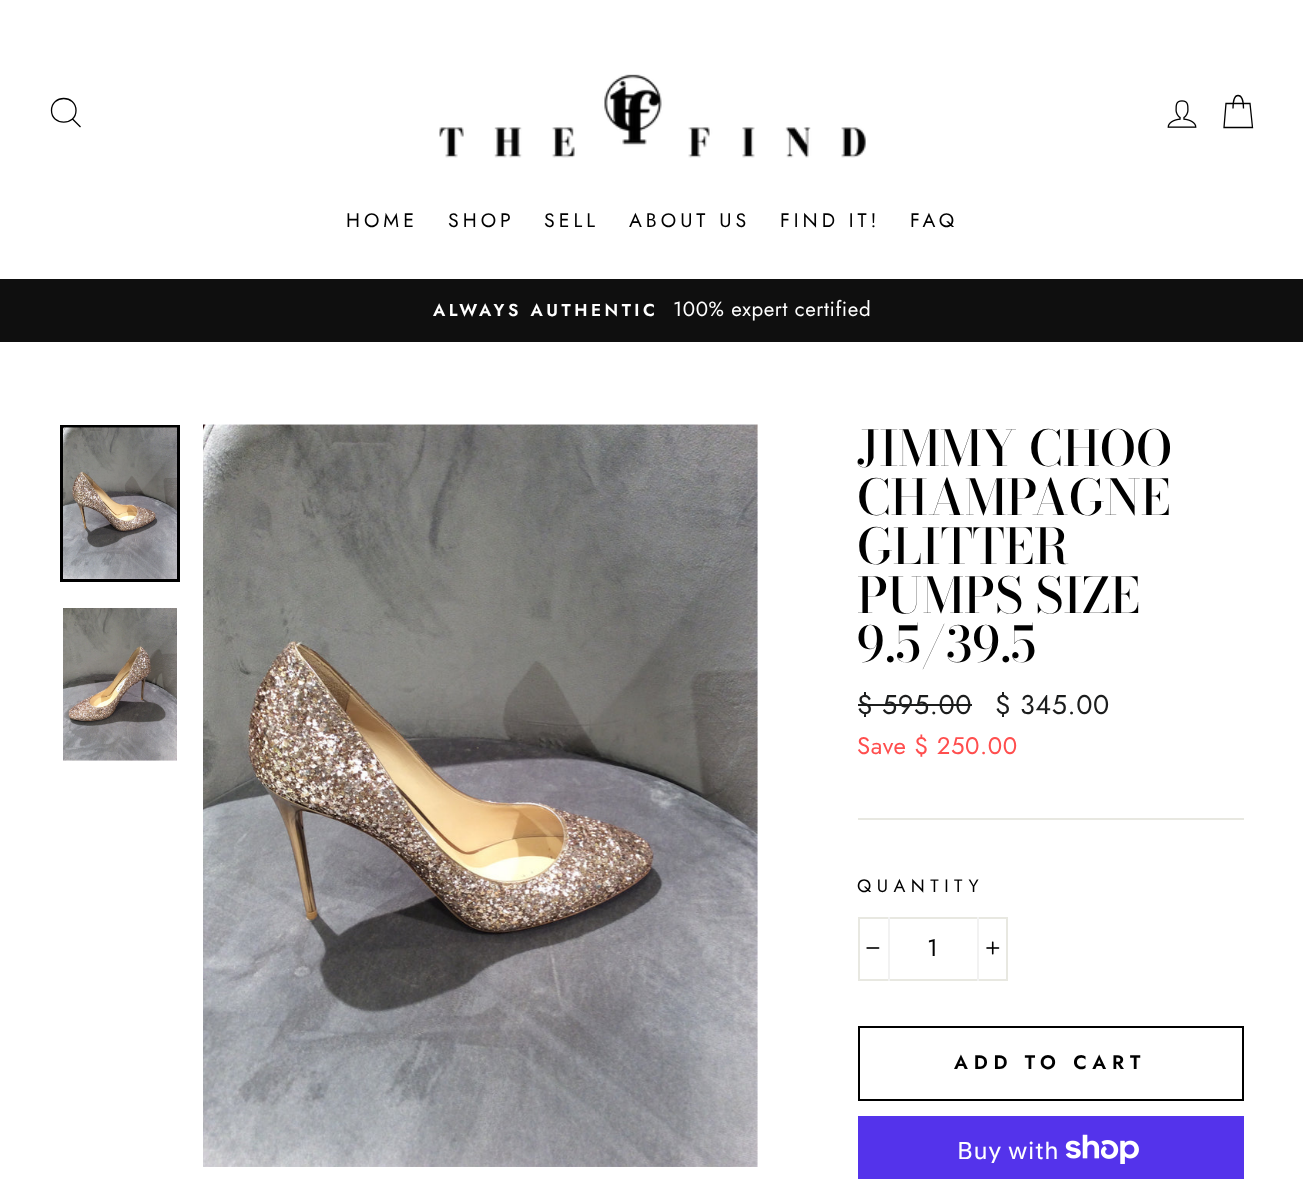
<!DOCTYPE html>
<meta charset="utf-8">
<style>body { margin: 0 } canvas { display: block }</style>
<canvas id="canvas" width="1303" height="1179"></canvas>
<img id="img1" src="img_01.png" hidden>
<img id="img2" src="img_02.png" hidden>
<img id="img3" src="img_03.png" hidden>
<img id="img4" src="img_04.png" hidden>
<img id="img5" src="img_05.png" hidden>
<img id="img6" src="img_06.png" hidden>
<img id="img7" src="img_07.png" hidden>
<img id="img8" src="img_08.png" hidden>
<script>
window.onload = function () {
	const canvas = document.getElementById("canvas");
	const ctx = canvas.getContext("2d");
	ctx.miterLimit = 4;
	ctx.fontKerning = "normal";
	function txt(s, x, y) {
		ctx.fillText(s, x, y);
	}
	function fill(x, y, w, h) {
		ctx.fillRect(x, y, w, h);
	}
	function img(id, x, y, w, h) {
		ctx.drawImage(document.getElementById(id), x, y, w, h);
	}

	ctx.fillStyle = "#FFFFFF";
	fill(0, 0, 1303, 1179);
	ctx.beginPath();
	ctx.moveTo(76, 110.5);
	ctx.bezierCurveTo(76, 126, 51.5, 126, 51.5, 110.5);
	ctx.bezierCurveTo(51.5, 94.5, 76, 94.5, 76, 110.5);
	ctx.closePath();
	ctx.moveTo(80.5, 127);
	ctx.lineTo(72.5, 119);
	ctx.strokeStyle = "#000000";
	ctx.lineWidth = 1.3;
	ctx.stroke();
	img("img1", 439, 74, 427, 84);
	img("img2", 1167, 100, 30, 28);
	ctx.beginPath();
	ctx.moveTo(1233, 108.5);
	ctx.bezierCurveTo(1233, 98, 1235, 95.5, 1238, 95.5);
	ctx.bezierCurveTo(1241, 95.5, 1243.5, 98, 1243.5, 108.5);
	ctx.moveTo(1226, 103.5);
	ctx.lineTo(1250, 103.5);
	ctx.lineTo(1252.5, 127.5);
	ctx.lineTo(1224, 127.5);
	ctx.closePath();
	ctx.stroke();
	ctx.fillStyle = "#0F0F0F";
	fill(0, 279, 1303, 63);
	ctx.lineWidth = 3;
	ctx.strokeRect(61.5, 426.5, 117, 154);
	img("img3", 63, 427, 114, 152);
	img("img4", 63, 608, 114, 153);
	img("img5", 203, 424, 555, 743);
	ctx.fillStyle = "#1C1D1D";
	fill(858, 704, 114, 2);
	ctx.fillStyle = "#E8E8E1";
	fill(858, 818, 386, 2);
	ctx.strokeStyle = "#E8E8E1";
	ctx.lineWidth = 2;
	ctx.strokeRect(859, 918, 148, 62);
	ctx.fillStyle = "#F2F2F2";
	fill(888, 917, 2, 64);
	img("img6", 866, 947, 14, 2);
	fill(977, 917, 2, 64);
	img("img7", 986, 941, 14, 14);
	ctx.strokeStyle = "#000000";
	ctx.strokeRect(859, 1027, 384, 73);
	ctx.fillStyle = "#5433EB";
	fill(858, 1116, 386, 63);
	img("img8", 1065, 1134, 74, 30);
	ctx.letterSpacing = "4px";
	ctx.font = "19.5px Jost";
	ctx.fillStyle = "#000000";
	txt("HOME", 346, 227);
	txt("SHOP", 448, 227);
	txt("SELL", 544, 227);
	txt("ABOUT US", 629, 227);
	txt("FIND IT!", 780, 227);
	txt("FAQ", 910, 227);
	ctx.letterSpacing = "3.5px";
	ctx.font = "600 17.3px Jost";
	ctx.fillStyle = "#FFFFFF";
	txt("ALWAYS AUTHENTIC", 433, 316);
	ctx.letterSpacing = "0.6px";
	ctx.font = "20.5px Jost";
	txt("100% expert certified", 673, 316);
	ctx.letterSpacing = "0px";
	ctx.font = "500 49px Bodoni Moda";
	ctx.fillStyle = "#000000";
	txt("JIMMY CHOO", 857, 466);
	txt("CHAMPAGNE", 857, 515);
	txt("GLITTER", 857, 564);
	txt("PUMPS SIZE", 857, 613);
	txt("9.5/39.5", 857, 662);
	ctx.letterSpacing = "0.6px";
	ctx.font = "27px Jost";
	ctx.fillStyle = "#1C1D1D";
	txt("$ 595.00", 857, 714);
	txt("$ 345.00", 995, 714);
	ctx.font = "24px Jost";
	ctx.fillStyle = "#FF4E4E";
	txt("Save $ 250.00", 857, 754);
	ctx.letterSpacing = "5.5px";
	ctx.font = "18px Jost";
	ctx.fillStyle = "#000000";
	txt("QUANTITY", 857, 892);
	ctx.letterSpacing = "0.6px";
	ctx.font = "24px Jost";
	txt("1", 927, 956);
	ctx.letterSpacing = "5.8px";
	ctx.font = "600 19.5px Jost";
	txt("ADD TO CART", 954, 1069);
	ctx.letterSpacing = "0.6px";
	ctx.font = "24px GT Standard";
	ctx.fillStyle = "#FFFFFF";
	txt("Buy with", 957, 1159);
};
</script>
